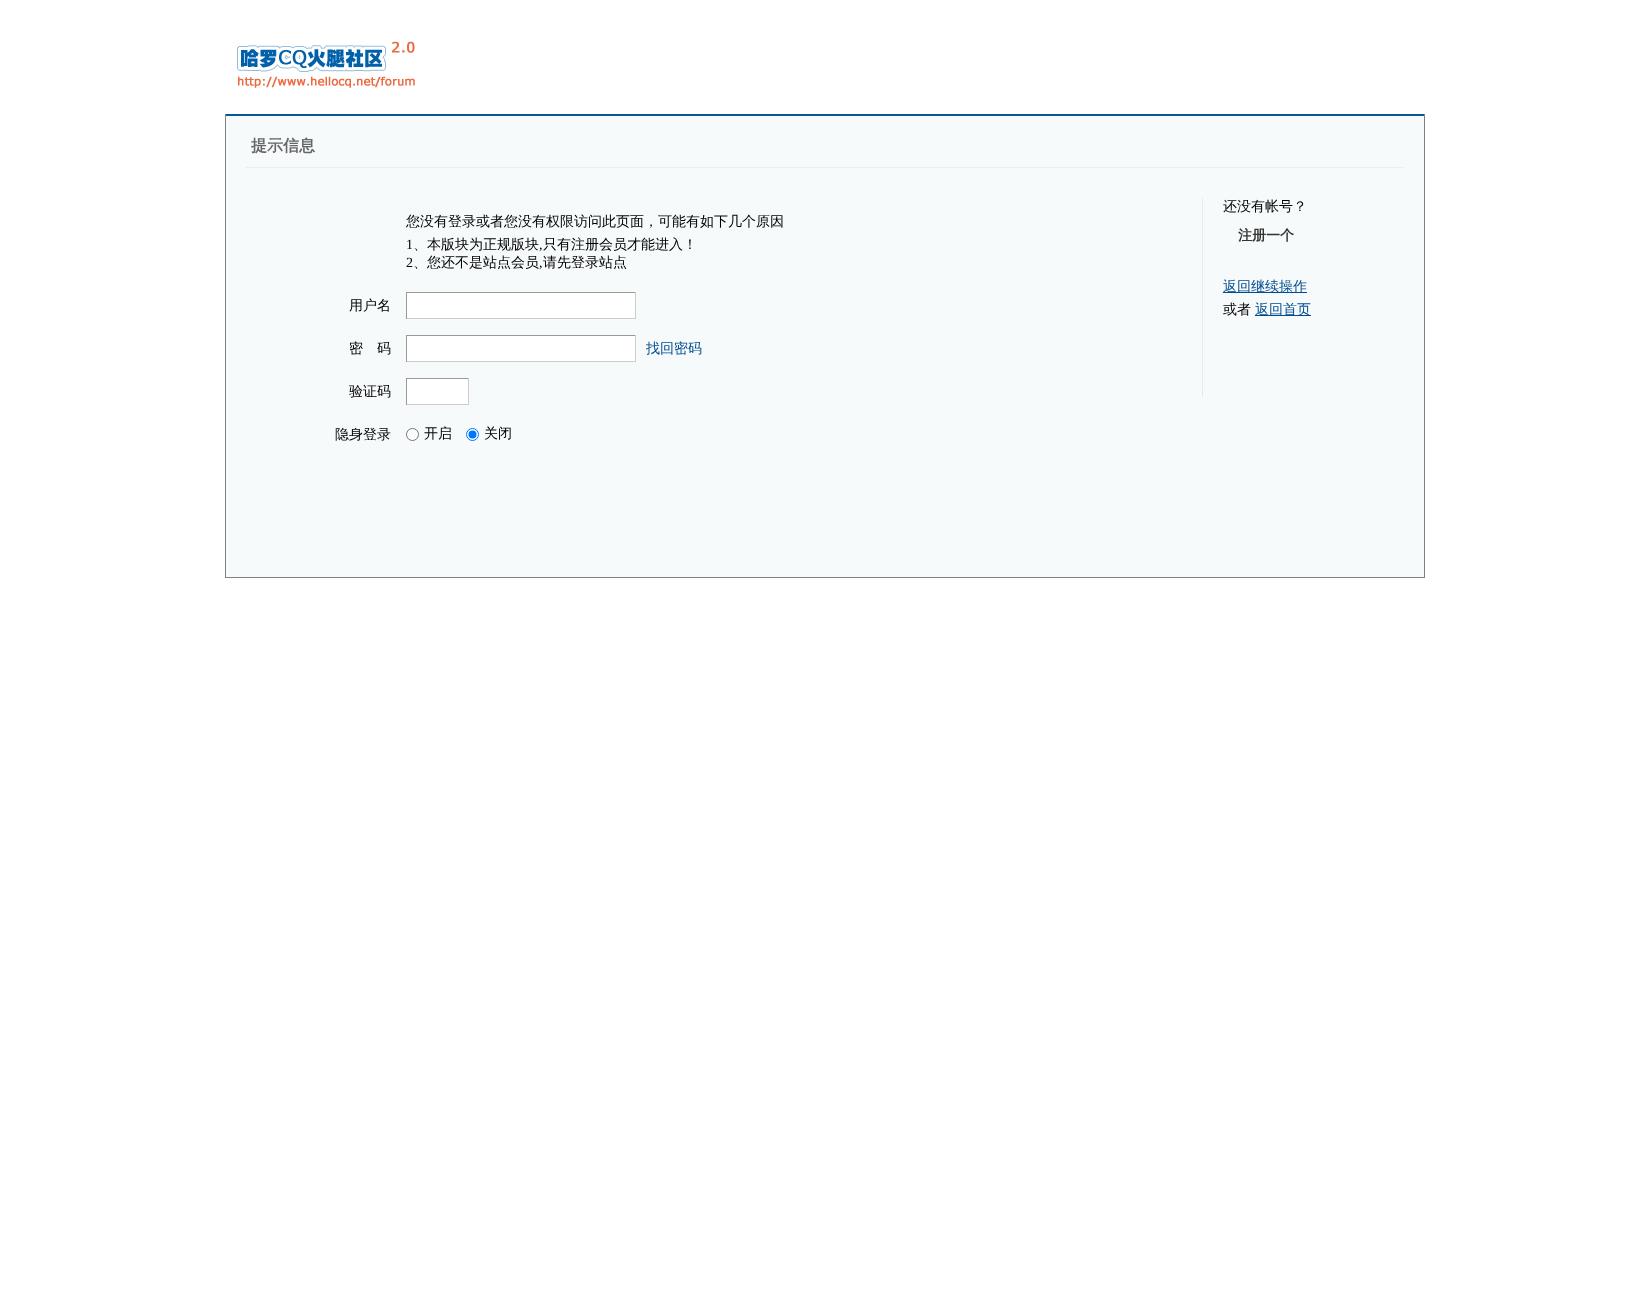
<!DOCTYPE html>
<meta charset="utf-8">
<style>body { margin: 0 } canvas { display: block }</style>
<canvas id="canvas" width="1650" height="1295"></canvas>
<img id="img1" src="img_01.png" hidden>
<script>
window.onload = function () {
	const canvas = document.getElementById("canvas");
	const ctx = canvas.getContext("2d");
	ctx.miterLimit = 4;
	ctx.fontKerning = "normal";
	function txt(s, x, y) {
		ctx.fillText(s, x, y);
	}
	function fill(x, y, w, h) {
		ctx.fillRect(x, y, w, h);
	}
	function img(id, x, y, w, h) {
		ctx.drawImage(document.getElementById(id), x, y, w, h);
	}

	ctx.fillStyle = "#FFFFFF";
	fill(0, 0, 1650, 1295);
	img("img1", 237, 41, 178, 47);
	ctx.fillStyle = "#F6FAFA";
	fill(226, 116, 1198, 461);
	ctx.fillStyle = "#065792";
	ctx.beginPath();
	ctx.moveTo(225, 114);
	ctx.lineTo(1425, 114);
	ctx.lineTo(1424, 116);
	ctx.lineTo(226, 116);
	ctx.closePath();
	ctx.fill();
	ctx.fillStyle = "#808080";
	ctx.beginPath();
	ctx.moveTo(1425, 114);
	ctx.lineTo(1425, 578);
	ctx.lineTo(1424, 577);
	ctx.lineTo(1424, 116);
	ctx.closePath();
	ctx.fill();
	fill(225, 577, 1200, 1);
	ctx.beginPath();
	ctx.moveTo(225, 578);
	ctx.lineTo(225, 114);
	ctx.lineTo(226, 116);
	ctx.lineTo(226, 577);
	ctx.closePath();
	ctx.fill();
	ctx.fillStyle = "#EDEDED";
	fill(246, 167, 1158, 1);
	ctx.fillStyle = "#FFFFFF";
	fill(407, 293, 228, 25);
	ctx.fillStyle = "#999999";
	fill(406, 292, 230, 1);
	ctx.fillStyle = "#CCCCCC";
	fill(635, 292, 1, 27);
	fill(406, 318, 230, 1);
	ctx.fillStyle = "#999999";
	fill(406, 292, 1, 27);
	ctx.fillStyle = "#FFFFFF";
	fill(407, 336, 228, 25);
	ctx.fillStyle = "#999999";
	fill(406, 335, 230, 1);
	ctx.fillStyle = "#CCCCCC";
	fill(635, 335, 1, 27);
	fill(406, 361, 230, 1);
	ctx.fillStyle = "#999999";
	fill(406, 335, 1, 27);
	ctx.fillStyle = "#FFFFFF";
	fill(407, 379, 61, 25);
	ctx.fillStyle = "#999999";
	fill(406, 378, 63, 1);
	ctx.fillStyle = "#CCCCCC";
	fill(468, 378, 1, 27);
	fill(406, 404, 63, 1);
	ctx.fillStyle = "#999999";
	fill(406, 378, 1, 27);
	ctx.fillStyle = "#FFFFFF";
	ctx.beginPath();
	ctx.arc(412.5, 434.5, 6, 0, Math.PI * 2);
	ctx.fill();
	ctx.strokeStyle = "#767676";
	ctx.stroke();
	ctx.beginPath();
	ctx.arc(472.5, 434.5, 6, 0, Math.PI * 2);
	ctx.fill();
	ctx.strokeStyle = "#0075FF";
	ctx.stroke();
	ctx.fillStyle = "#0075FF";
	ctx.beginPath();
	ctx.arc(472.5, 434.5, 4, 0, Math.PI * 2);
	ctx.fill();
	ctx.beginPath();
	ctx.moveTo(1202.5, 198);
	ctx.lineTo(1202.5, 398);
	ctx.strokeStyle = "#DDDDDD";
	ctx.setLineDash([1, 1]);
	ctx.stroke();
	ctx.fillStyle = "#014C90";
	fill(1223, 292, 84, 1);
	fill(1255, 315, 56, 1);
	ctx.font = "bold 16px WenQuanYi Zen Hei";
	ctx.fillStyle = "#666666";
	txt("提示信息", 251, 151);
	ctx.font = "500 14px WenQuanYi Zen Hei";
	ctx.fillStyle = "#000000";
	txt("您没有登录或者您没有权限访问此页面，可能有如下几个原因", 406, 226);
	ctx.font = "14px Liberation Serif";
	txt("1", 406, 249);
	ctx.font = "500 14px WenQuanYi Zen Hei";
	txt("、本版块为正规版块", 413, 249);
	txt("只有注册会员才能进入！", 543, 249);
	ctx.font = "14px Liberation Serif";
	txt(",", 539, 249);
	txt("2", 406, 267);
	ctx.font = "500 14px WenQuanYi Zen Hei";
	txt("、您还不是站点会员", 413, 267);
	txt("请先登录站点", 543, 267);
	ctx.font = "14px Liberation Serif";
	txt(",", 539, 267);
	ctx.font = "500 14px WenQuanYi Zen Hei";
	txt("用户名", 349, 310);
	txt("密　码", 349, 353);
	ctx.fillStyle = "#014C90";
	txt("找回密码", 646, 353);
	ctx.fillStyle = "#000000";
	txt("验证码", 349, 396);
	txt("隐身登录", 335, 439);
	txt("开启", 424, 438);
	txt("关闭", 484, 438);
	txt("还没有帐号？", 1223, 211);
	ctx.font = "bold 14px WenQuanYi Zen Hei";
	ctx.fillStyle = "#333333";
	txt("注册一个", 1238, 240);
	ctx.font = "500 14px WenQuanYi Zen Hei";
	ctx.fillStyle = "#014C90";
	txt("返回继续操作", 1223, 291);
	ctx.fillStyle = "#000000";
	txt("或者", 1223, 314);
	ctx.fillStyle = "#014C90";
	txt("返回首页", 1255, 314);
};
</script>
